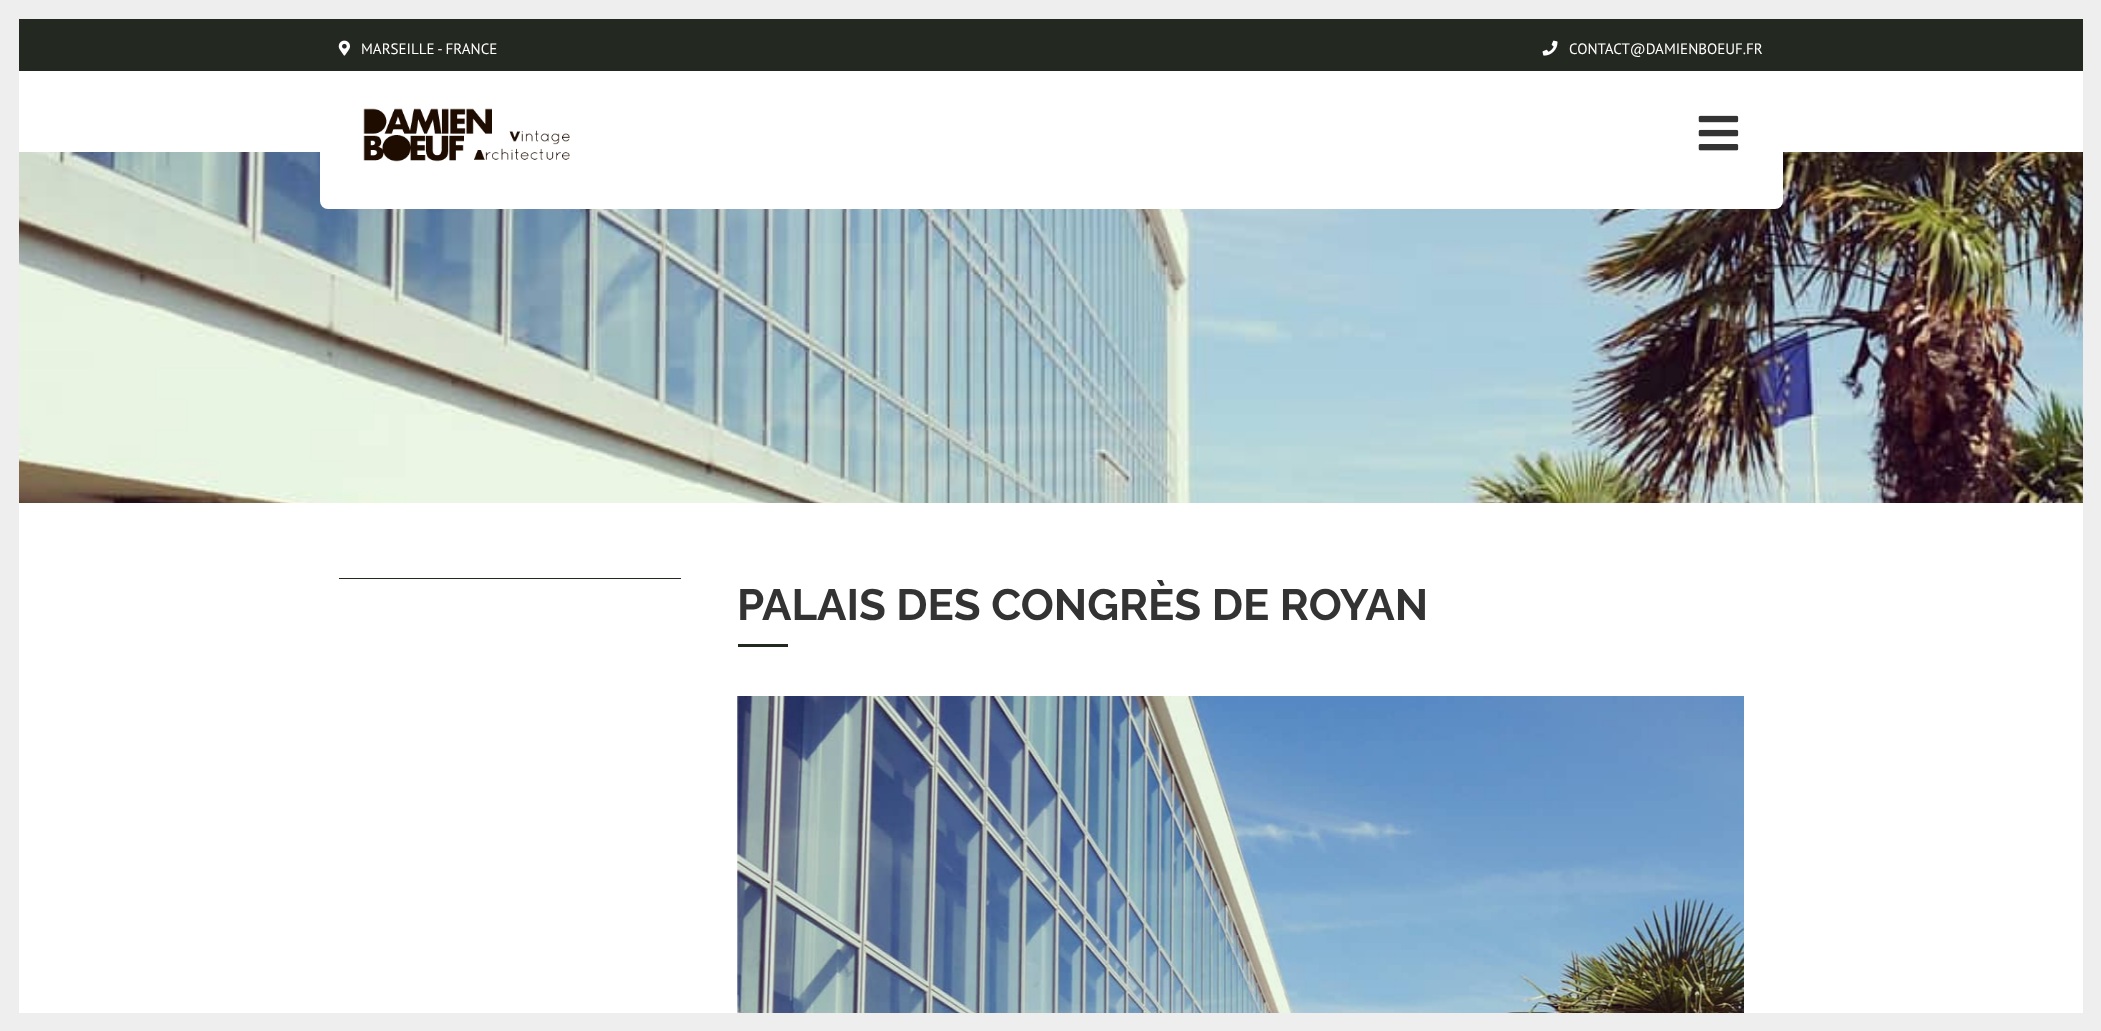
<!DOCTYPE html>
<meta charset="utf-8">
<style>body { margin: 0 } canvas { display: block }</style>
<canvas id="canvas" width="2101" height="1031"></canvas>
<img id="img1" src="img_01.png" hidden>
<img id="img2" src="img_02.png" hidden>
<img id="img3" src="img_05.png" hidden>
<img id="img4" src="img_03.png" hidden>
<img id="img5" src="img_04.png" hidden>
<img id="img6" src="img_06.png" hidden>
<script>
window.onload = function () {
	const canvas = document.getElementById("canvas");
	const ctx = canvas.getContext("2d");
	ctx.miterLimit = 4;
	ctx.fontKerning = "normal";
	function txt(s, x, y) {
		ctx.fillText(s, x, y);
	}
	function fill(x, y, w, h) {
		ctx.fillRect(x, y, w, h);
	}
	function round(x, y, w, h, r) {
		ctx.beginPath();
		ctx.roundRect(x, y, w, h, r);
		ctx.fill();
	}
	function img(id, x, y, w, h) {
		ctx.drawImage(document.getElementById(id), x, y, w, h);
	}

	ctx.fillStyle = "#FFFFFF";
	fill(0, 0, 2101, 1031);
	ctx.fillStyle = "#EEEEEE";
	fill(19, 0, 2064, 19);
	fill(2083, 0, 18, 1031);
	fill(0, 0, 19, 1031);
	ctx.fillStyle = "#232821";
	fill(19, 19, 2064, 52);
	img("img1", 338, 40, 12, 16);
	img("img2", 1542, 40, 16, 16);
	img("img3", 19, 152, 2064, 351);
	ctx.fillStyle = "#FFFFFF";
	round(320, 71, 1463, 138, 8);
	img("img4", 363, 108, 207, 54);
	img("img5", 1698, 115, 41, 36);
	ctx.fillStyle = "#232821";
	fill(339, 578, 342, 1);
	fill(738, 644, 50, 3);
	img("img6", 737, 696, 1007, 317);
	ctx.fillStyle = "#EEEEEE";
	fill(19, 1013, 2064, 18);
	ctx.font = "15px PT Sans";
	ctx.fillStyle = "#FFFFFF";
	txt("MARSEILLE - FRANCE", 361, 54);
	txt("CONTACT@DAMIENBOEUF.FR", 1569, 54);
	ctx.font = "bold 43.75px Raleway";
	ctx.fillStyle = "#333333";
	txt("PALAIS DES CONGRÈS DE ROYAN", 737, 620);
};
</script>
